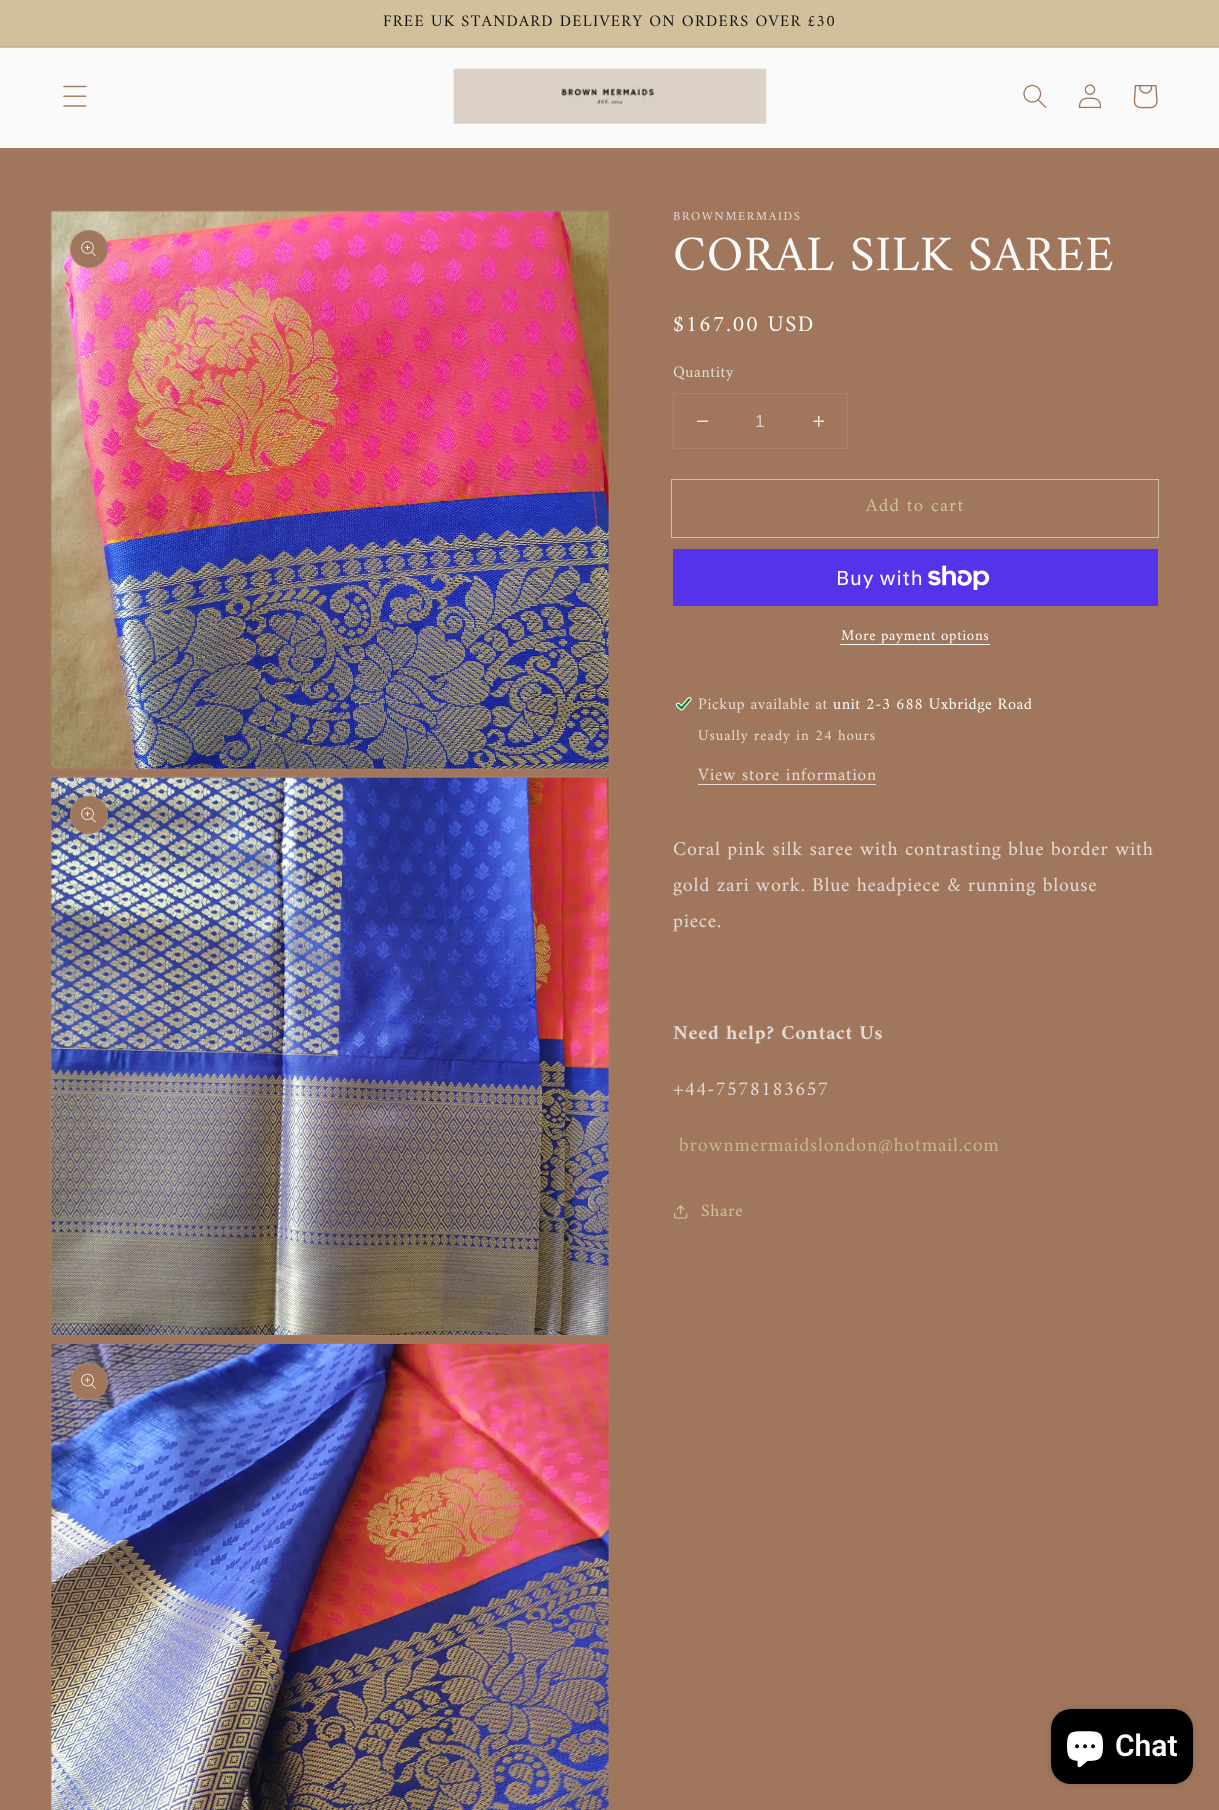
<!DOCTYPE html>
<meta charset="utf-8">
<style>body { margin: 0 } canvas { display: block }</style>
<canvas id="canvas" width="1219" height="1810"></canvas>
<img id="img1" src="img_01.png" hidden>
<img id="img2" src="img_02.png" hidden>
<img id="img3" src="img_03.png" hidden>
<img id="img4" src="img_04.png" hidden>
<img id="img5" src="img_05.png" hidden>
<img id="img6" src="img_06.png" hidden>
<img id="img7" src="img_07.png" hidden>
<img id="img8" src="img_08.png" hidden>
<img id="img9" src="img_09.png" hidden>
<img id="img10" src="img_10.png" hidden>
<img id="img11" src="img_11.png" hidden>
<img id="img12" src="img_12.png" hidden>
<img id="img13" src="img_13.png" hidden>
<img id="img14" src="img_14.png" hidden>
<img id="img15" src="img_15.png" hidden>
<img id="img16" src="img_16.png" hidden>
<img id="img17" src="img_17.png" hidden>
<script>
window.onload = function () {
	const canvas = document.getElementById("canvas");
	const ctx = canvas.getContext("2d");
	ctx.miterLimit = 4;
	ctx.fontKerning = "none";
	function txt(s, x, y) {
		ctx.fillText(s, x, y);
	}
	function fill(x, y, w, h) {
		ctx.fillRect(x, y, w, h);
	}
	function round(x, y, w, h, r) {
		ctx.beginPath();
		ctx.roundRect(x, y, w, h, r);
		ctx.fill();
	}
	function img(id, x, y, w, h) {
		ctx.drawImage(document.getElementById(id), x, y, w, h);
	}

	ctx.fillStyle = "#A0775C";
	fill(0, 0, 1219, 1810);
	ctx.fillStyle = "#D1C09B";
	fill(0, 0, 1219, 48);
	ctx.fillStyle = "#C2B290";
	fill(0, 46, 1219, 1);
	ctx.fillStyle = "#FAFAFA";
	fill(0, 48, 1219, 100);
	ctx.fillStyle = "#F3F0ED";
	fill(0, 146, 1219, 1);
	img("img1", 63, 85, 24, 22);
	img("img2", 453, 68, 314, 56);
	img("img3", 1023, 84, 24, 24);
	img("img4", 1078, 84, 24, 25);
	img("img5", 1133, 85, 25, 24);
	ctx.strokeStyle = "#A47C62";
	ctx.strokeRect(50.5, 210.5, 559, 559);
	img("img6", 51, 211, 558, 558);
	ctx.fillStyle = "#A0775C";
	ctx.beginPath();
	ctx.arc(89, 249, 19, 0, Math.PI * 2);
	ctx.fill();
	ctx.beginPath();
	ctx.arc(89, 249, 18.5, 0, Math.PI * 2);
	ctx.strokeStyle = "rgba(250, 250, 250, 0.1)";
	ctx.stroke();
	img("img7", 81, 241, 15, 16);
	ctx.strokeStyle = "#A47C62";
	ctx.strokeRect(50.5, 776.5, 559, 559);
	img("img8", 51, 777, 558, 558);
	ctx.beginPath();
	ctx.arc(89, 815, 19, 0, Math.PI * 2);
	ctx.fill();
	ctx.beginPath();
	ctx.arc(89, 815, 18.5, 0, Math.PI * 2);
	ctx.strokeStyle = "rgba(250, 250, 250, 0.1)";
	ctx.stroke();
	img("img9", 81, 807, 15, 16);
	ctx.strokeStyle = "#A47C62";
	ctx.strokeRect(50.5, 1343.5, 559, 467);
	img("img10", 51, 1343, 558, 467);
	round(70, 1363, 38, 37, 18.5);
	ctx.beginPath();
	ctx.roundRect(70.5, 1363.5, 37, 36, 18);
	ctx.strokeStyle = "rgba(250, 250, 250, 0.1)";
	ctx.stroke();
	img("img11", 81, 1373, 15, 16);
	ctx.strokeStyle = "#A78169";
	ctx.strokeRect(673.5, 393.5, 174, 55);
	img("img12", 696, 420, 13, 2);
	img("img13", 813, 415, 12, 12);
	ctx.strokeStyle = "#D1C09B";
	ctx.strokeRect(671.5, 479.5, 487, 58);
	ctx.fillStyle = "#5433EB";
	fill(673, 549, 485, 57);
	img("img14", 928, 565, 62, 25);
	ctx.fillStyle = "#FAFAFA";
	fill(840, 644, 150, 1);
	img("img15", 675, 697, 17, 14);
	ctx.fillStyle = "#E4D9D3";
	fill(698, 784, 178, 1);
	img("img16", 673, 1205, 15, 14);
	ctx.fillStyle = "rgba(0, 0, 0, 0.15)";
	ctx.filter = "blur(3px)";
	ctx.beginPath();
	ctx.roundRect(1051, 1709, 142, 75, 20);
	ctx.fill();
	ctx.filter = "none";
	ctx.fillStyle = "#000000";
	round(1051, 1709, 142, 75, 20);
	img("img17", 1067, 1731, 36, 37);
	ctx.letterSpacing = "1.25px";
	ctx.font = "16.25px Amiri";
	ctx.fillStyle = "#121212";
	txt("FREE UK STANDARD DELIVERY ON ORDERS OVER £30", 383, 26);
	ctx.letterSpacing = "1.6px";
	ctx.font = "12.5px Amiri";
	ctx.fillStyle = "#E4D9D3";
	txt("BROWNMERMAIDS", 673, 220);
	ctx.letterSpacing = "0.75px";
	ctx.font = "50px Amiri";
	ctx.fillStyle = "#FAFAFA";
	txt("CORAL SILK SAREE", 673, 270);
	ctx.letterSpacing = "1.6px";
	ctx.font = "22.5px Amiri";
	txt("$167.00 USD", 673, 331);
	ctx.letterSpacing = "0.5px";
	ctx.font = "16.25px Amiri";
	ctx.fillStyle = "#E4D9D3";
	txt("Quantity", 673, 377);
	ctx.letterSpacing = "0px";
	ctx.font = "17.5px Liberation Sans";
	ctx.fillStyle = "#DACAC1";
	txt("1", 755, 427);
	ctx.letterSpacing = "1.25px";
	ctx.font = "18.75px Amiri";
	ctx.fillStyle = "#D1C09B";
	txt("Add to cart", 866, 511);
	ctx.letterSpacing = "0.75px";
	ctx.font = "20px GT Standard";
	ctx.fillStyle = "#FAFAFA";
	txt("Buy with", 836, 585);
	ctx.letterSpacing = "0.6px";
	ctx.font = "15px Amiri";
	txt("More payment options", 841, 640);
	ctx.letterSpacing = "0.5px";
	ctx.font = "16.25px Amiri";
	ctx.fillStyle = "#E4D9D3";
	txt("Pickup available at", 698, 709);
	ctx.fillStyle = "#FAFAFA";
	txt("unit 2-3 688 Uxbridge Road", 833, 709);
	ctx.letterSpacing = "0.9px";
	ctx.font = "15px Amiri";
	ctx.fillStyle = "#E4D9D3";
	txt("Usually ready in 24 hours", 698, 740);
	ctx.letterSpacing = "0.75px";
	ctx.font = "17.5px Amiri";
	txt("View store information", 698, 780);
	ctx.font = "20px Amiri";
	txt("Coral pink silk saree with contrasting blue border with", 673, 855);
	txt("gold zari work. Blue headpiece & running blouse", 673, 891);
	txt("piece.", 673, 927);
	ctx.font = "bold 20px Amiri";
	txt("Need help? Contact Us", 673, 1039);
	ctx.font = "20px Amiri";
	txt("+44-7578183657", 673, 1095);
	ctx.fillStyle = "#CAB592";
	txt("brownmermaidslondon@hotmail.com", 679, 1151);
	ctx.font = "17.5px Amiri";
	ctx.fillStyle = "#D1C09B";
	txt("Share", 701, 1216);
	ctx.letterSpacing = "0px";
	ctx.font = "600 30px Roboto";
	ctx.fillStyle = "#FAFAFA";
	txt("Chat", 1115, 1756);
};
</script>
